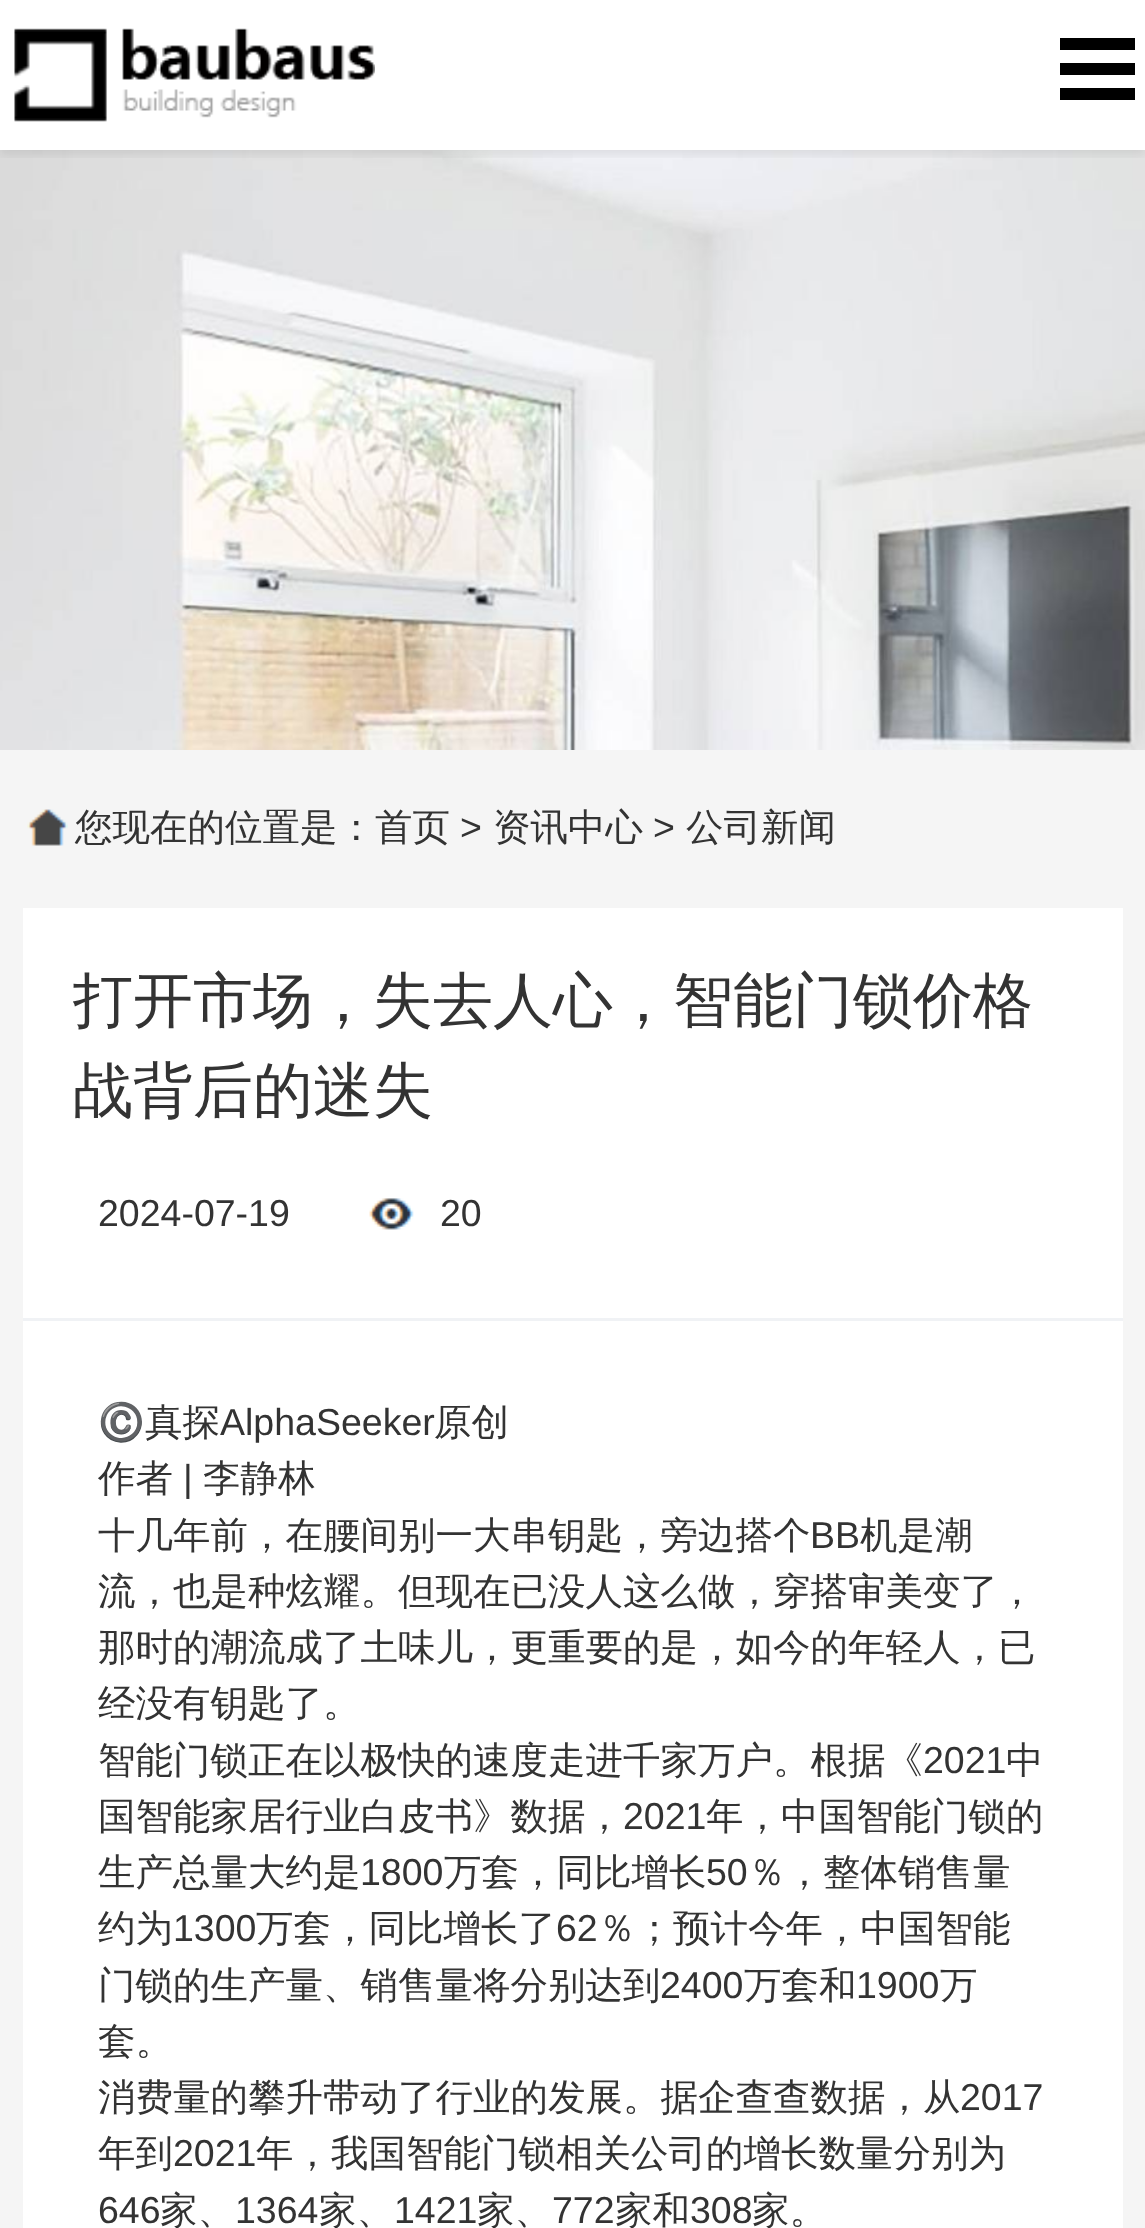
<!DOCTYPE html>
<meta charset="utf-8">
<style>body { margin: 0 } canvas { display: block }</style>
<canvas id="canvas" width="1145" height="2228"></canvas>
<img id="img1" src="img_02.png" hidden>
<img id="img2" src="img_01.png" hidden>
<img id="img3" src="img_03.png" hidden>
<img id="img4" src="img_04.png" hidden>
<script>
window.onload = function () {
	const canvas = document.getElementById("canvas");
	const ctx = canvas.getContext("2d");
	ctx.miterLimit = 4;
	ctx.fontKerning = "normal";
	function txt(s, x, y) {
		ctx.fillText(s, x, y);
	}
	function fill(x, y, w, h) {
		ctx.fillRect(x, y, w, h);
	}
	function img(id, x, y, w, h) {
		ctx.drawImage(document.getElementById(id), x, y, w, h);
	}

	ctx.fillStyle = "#FFFFFF";
	fill(0, 0, 1145, 2228);
	img("img1", 0, 150, 1145, 600);
	ctx.save();
	ctx.beginPath();
	ctx.rect(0, 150, 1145, 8);
	ctx.clip();
	ctx.fillStyle = "rgba(0, 0, 0, 0.08)";
	ctx.filter = "blur(5px)";
	ctx.beginPath();
	ctx.rect(0, 5, 1145, 150);
	ctx.fill();
	ctx.filter = "none";
	ctx.restore();
	img("img2", 14, 28, 361, 94);
	ctx.fillStyle = "#000000";
	fill(1060, 63, 75, 12);
	fill(1060, 38, 75, 12);
	fill(1060, 88, 75, 12);
	ctx.fillStyle = "#F5F5F5";
	fill(0, 750, 1145, 1478);
	img("img3", 27, 809, 41, 37);
	ctx.fillStyle = "#FFFFFF";
	fill(23, 908, 1100, 1320);
	img("img4", 369, 1198, 45, 32);
	ctx.fillStyle = "#F0F2F5";
	fill(23, 1318, 1100, 3);
	ctx.font = "500 37.5px WenQuanYi Zen Hei";
	ctx.fillStyle = "#333333";
	txt("您现在的位置是：首页", 75, 840);
	ctx.font = "37.5px Liberation Sans";
	txt(">", 460, 840);
	ctx.font = "500 37.5px WenQuanYi Zen Hei";
	txt("资讯中心", 493, 840);
	ctx.font = "37.5px Liberation Sans";
	txt(">", 653, 840);
	ctx.font = "500 37.5px WenQuanYi Zen Hei";
	txt("公司新闻", 686, 840);
	ctx.font = "500 60px WenQuanYi Zen Hei";
	txt("打开市场，失去人心，智能门锁价格", 73, 1021);
	txt("战背后的迷失", 73, 1111);
	ctx.font = "37.5px Liberation Sans";
	txt("2024-07-19", 98, 1226);
	txt("20", 440, 1226);
	ctx.font = "37.5px Noto Color Emoji";
	txt("©️", 98, 1435);
	ctx.font = "500 37.5px WenQuanYi Zen Hei";
	txt("真探", 145, 1435);
	ctx.font = "37.5px Liberation Sans";
	txt("AlphaSeeker", 220, 1435);
	ctx.font = "500 37.5px WenQuanYi Zen Hei";
	txt("原创", 434, 1435);
	txt("作者", 98, 1491);
	ctx.font = "37.5px Liberation Sans";
	txt("|", 183, 1491);
	ctx.font = "500 37.5px WenQuanYi Zen Hei";
	txt("李静林", 203, 1491);
	txt("十几年前，在腰间别一大串钥匙，旁边搭个", 98, 1548);
	ctx.font = "37.5px Liberation Sans";
	txt("BB", 810, 1548);
	ctx.font = "500 37.5px WenQuanYi Zen Hei";
	txt("机是潮", 860, 1548);
	txt("流，也是种炫耀。但现在已没人这么做，穿搭审美变了，", 98, 1604);
	txt("那时的潮流成了土味儿，更重要的是，如今的年轻人，已", 98, 1660);
	txt("经没有钥匙了。", 98, 1716);
	txt("智能门锁正在以极快的速度走进千家万户。根据《", 98, 1773);
	ctx.font = "37.5px Liberation Sans";
	txt("2021", 923, 1773);
	ctx.font = "500 37.5px WenQuanYi Zen Hei";
	txt("中", 1006, 1773);
	txt("国智能家居行业白皮书》数据，", 98, 1829);
	ctx.font = "37.5px Liberation Sans";
	txt("2021", 623, 1829);
	ctx.font = "500 37.5px WenQuanYi Zen Hei";
	txt("年，中国智能门锁的", 706, 1829);
	txt("生产总量大约是", 98, 1885);
	ctx.font = "37.5px Liberation Sans";
	txt("1800", 360, 1885);
	ctx.font = "500 37.5px WenQuanYi Zen Hei";
	txt("万套，同比增长", 444, 1885);
	ctx.font = "37.5px Liberation Sans";
	txt("50", 706, 1885);
	ctx.font = "500 37.5px WenQuanYi Zen Hei";
	txt("％，整体销售量", 748, 1885);
	txt("约为", 98, 1941);
	ctx.font = "37.5px Liberation Sans";
	txt("1300", 173, 1941);
	ctx.font = "500 37.5px WenQuanYi Zen Hei";
	txt("万套，同比增长了", 256, 1941);
	ctx.font = "37.5px Liberation Sans";
	txt("62", 556, 1941);
	ctx.font = "500 37.5px WenQuanYi Zen Hei";
	txt("％；预计今年，中国智能", 598, 1941);
	txt("门锁的生产量、销售量将分别达到", 98, 1998);
	ctx.font = "37.5px Liberation Sans";
	txt("2400", 660, 1998);
	ctx.font = "500 37.5px WenQuanYi Zen Hei";
	txt("万套和", 744, 1998);
	ctx.font = "37.5px Liberation Sans";
	txt("1900", 856, 1998);
	ctx.font = "500 37.5px WenQuanYi Zen Hei";
	txt("万", 940, 1998);
	txt("套。", 98, 2054);
	txt("消费量的攀升带动了行业的发展。据企查查数据，从", 98, 2110);
	ctx.font = "37.5px Liberation Sans";
	txt("2017", 960, 2110);
	ctx.font = "500 37.5px WenQuanYi Zen Hei";
	txt("年到", 98, 2166);
	ctx.font = "37.5px Liberation Sans";
	txt("2021", 173, 2166);
	ctx.font = "500 37.5px WenQuanYi Zen Hei";
	txt("年，我国智能门锁相关公司的增长数量分别为", 256, 2166);
	ctx.font = "37.5px Liberation Sans";
	txt("646", 98, 2223);
	ctx.font = "500 37.5px WenQuanYi Zen Hei";
	txt("家、", 160, 2223);
	ctx.font = "37.5px Liberation Sans";
	txt("1364", 235, 2223);
	ctx.font = "500 37.5px WenQuanYi Zen Hei";
	txt("家、", 319, 2223);
	ctx.font = "37.5px Liberation Sans";
	txt("1421", 394, 2223);
	ctx.font = "500 37.5px WenQuanYi Zen Hei";
	txt("家、", 477, 2223);
	ctx.font = "37.5px Liberation Sans";
	txt("772", 552, 2223);
	ctx.font = "500 37.5px WenQuanYi Zen Hei";
	txt("家和", 615, 2223);
	ctx.font = "37.5px Liberation Sans";
	txt("308", 690, 2223);
	ctx.font = "500 37.5px WenQuanYi Zen Hei";
	txt("家。", 752, 2223);
};
</script>
